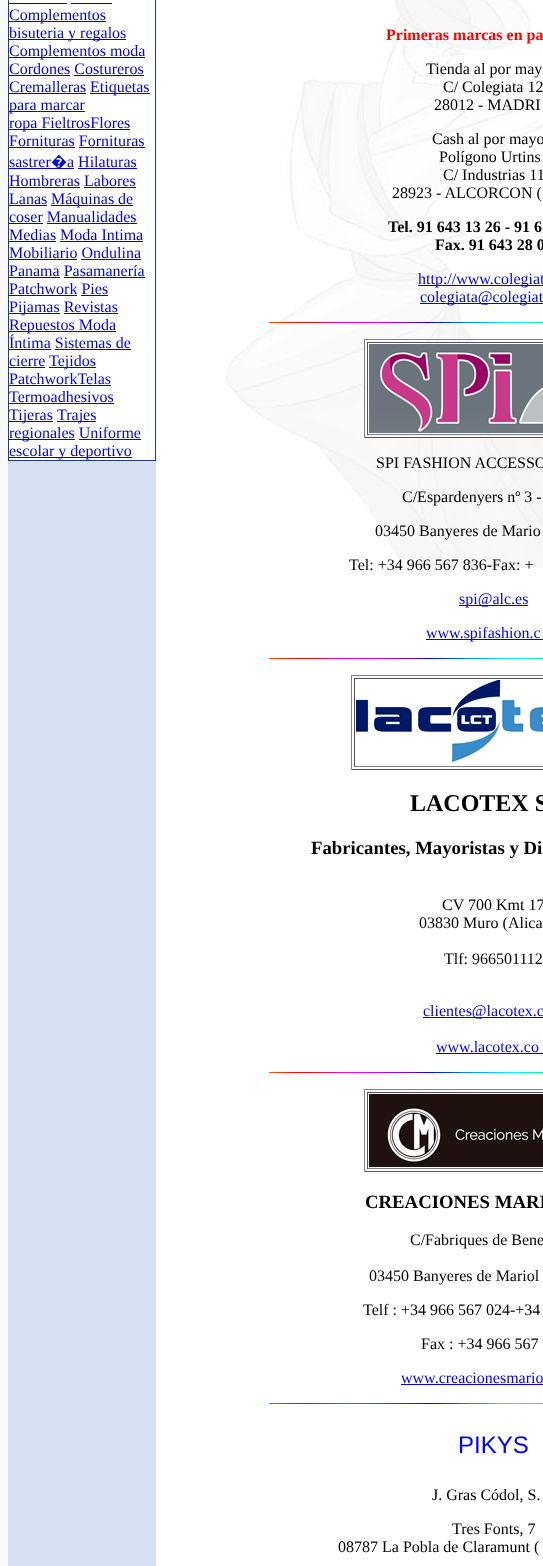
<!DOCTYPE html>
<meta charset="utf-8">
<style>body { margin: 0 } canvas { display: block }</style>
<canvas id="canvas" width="543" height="1566"></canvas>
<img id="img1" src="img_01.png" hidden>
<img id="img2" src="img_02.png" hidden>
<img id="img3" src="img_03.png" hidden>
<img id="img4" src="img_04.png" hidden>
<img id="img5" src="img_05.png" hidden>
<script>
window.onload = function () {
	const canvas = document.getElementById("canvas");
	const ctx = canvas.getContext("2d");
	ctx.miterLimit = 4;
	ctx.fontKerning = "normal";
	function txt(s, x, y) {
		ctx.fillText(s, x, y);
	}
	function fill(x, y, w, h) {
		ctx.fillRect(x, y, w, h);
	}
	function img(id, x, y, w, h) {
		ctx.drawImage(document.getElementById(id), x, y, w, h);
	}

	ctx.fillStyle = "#F8F9FD";
	fill(0, 0, 543, 1566);
	ctx.fillStyle = "#D7E0F1";
	fill(8, 461, 148, 1105);
	ctx.fillStyle = "#223D77";
	fill(8, 0, 148, 461);
	ctx.fillStyle = "#FFFFFF";
	fill(9, 0, 146, 460);
	ctx.fillStyle = "#0000EE";
	fill(9, 3, 58, 1);
	fill(71, 3, 41, 1);
	fill(9, 21, 97, 1);
	fill(9, 39, 117, 1);
	fill(9, 57, 136, 1);
	fill(9, 75, 61, 1);
	fill(74, 75, 70, 1);
	fill(9, 93, 77, 1);
	fill(90, 93, 60, 1);
	fill(9, 111, 76, 1);
	fill(9, 129, 121, 1);
	fill(9, 147, 66, 1);
	fill(9, 168, 65, 1);
	fill(79, 147, 66, 1);
	fill(78, 168, 59, 1);
	fill(9, 187, 71, 1);
	fill(84, 187, 52, 1);
	fill(9, 205, 38, 1);
	fill(51, 205, 82, 1);
	fill(9, 223, 34, 1);
	fill(47, 223, 90, 1);
	fill(9, 241, 47, 1);
	fill(60, 241, 83, 1);
	fill(9, 259, 68, 1);
	fill(81, 259, 60, 1);
	fill(9, 277, 51, 1);
	fill(64, 277, 81, 1);
	fill(9, 295, 68, 1);
	fill(81, 295, 27, 1);
	fill(9, 313, 51, 1);
	fill(64, 313, 54, 1);
	fill(9, 331, 107, 1);
	fill(9, 349, 42, 1);
	fill(55, 349, 76, 1);
	fill(9, 367, 36, 1);
	fill(49, 367, 47, 1);
	fill(9, 385, 102, 1);
	fill(9, 403, 105, 1);
	fill(9, 421, 44, 1);
	fill(57, 421, 39, 1);
	fill(9, 439, 66, 1);
	fill(79, 439, 62, 1);
	fill(9, 457, 123, 1);
	ctx.fillStyle = "#FFFFFF";
	fill(156, 0, 387, 1566);
	img("img1", 226, 0, 317, 568);
	ctx.fillStyle = "#0000EE";
	fill(418, 285, 125, 1);
	fill(420, 303, 123, 1);
	img("img2", 269, 322, 274, 1);
	ctx.fillStyle = "#808080";
	fill(364, 339, 179, 1);
	ctx.fillStyle = "#555555";
	fill(364, 437, 179, 1);
	ctx.fillStyle = "#808080";
	fill(364, 339, 1, 99);
	ctx.fillStyle = "#555555";
	fill(367, 342, 176, 1);
	ctx.fillStyle = "#808080";
	fill(367, 434, 176, 1);
	ctx.fillStyle = "#555555";
	fill(367, 342, 1, 93);
	img("img3", 369, 344, 174, 89);
	ctx.fillStyle = "#0000EE";
	fill(459, 605, 69, 1);
	fill(426, 639, 117, 1);
	img("img2", 269, 658, 274, 1);
	ctx.fillStyle = "#808080";
	fill(351, 675, 192, 1);
	ctx.fillStyle = "#555555";
	fill(351, 769, 192, 1);
	ctx.fillStyle = "#808080";
	fill(351, 675, 1, 95);
	ctx.fillStyle = "#555555";
	fill(354, 678, 189, 1);
	ctx.fillStyle = "#808080";
	fill(354, 766, 189, 1);
	ctx.fillStyle = "#555555";
	fill(354, 678, 1, 89);
	img("img4", 356, 680, 187, 82);
	ctx.fillStyle = "#0000EE";
	fill(423, 1017, 120, 1);
	fill(436, 1053, 107, 1);
	img("img2", 269, 1072, 274, 1);
	ctx.fillStyle = "#808080";
	fill(364, 1089, 179, 1);
	ctx.fillStyle = "#555555";
	fill(364, 1171, 179, 1);
	ctx.fillStyle = "#808080";
	fill(364, 1089, 1, 83);
	ctx.fillStyle = "#555555";
	fill(367, 1092, 176, 1);
	ctx.fillStyle = "#808080";
	fill(367, 1168, 176, 1);
	ctx.fillStyle = "#555555";
	fill(367, 1092, 1, 77);
	img("img5", 369, 1094, 174, 73);
	ctx.fillStyle = "#0000EE";
	fill(401, 1384, 142, 1);
	img("img2", 269, 1403, 274, 1);
	ctx.font = "16px Liberation Serif";
	txt("Complementos", 9, 20);
	txt("bisuteria y regalos", 9, 38);
	txt("Complementos moda", 9, 56);
	txt("Cordones Costureros", 9, 74);
	txt("Cremalleras", 9, 92);
	txt("Etiquetas", 90, 92);
	txt("para marcar", 9, 110);
	txt("ropa FieltrosFlores", 9, 128);
	txt("Fornituras Fornituras", 9, 146);
	txt("sastrer", 9, 167);
	ctx.font = "16px Noto Sans";
	txt("�", 51, 167);
	ctx.font = "16px Liberation Serif";
	txt("a Hilaturas", 67, 167);
	txt("Hombreras Labores", 9, 186);
	txt("Lanas", 9, 204);
	txt("Máquinas de", 51, 204);
	txt("coser Manualidades", 9, 222);
	txt("Medias Moda Intima", 9, 240);
	txt("Mobiliario Ondulina", 9, 258);
	txt("Panama Pasamanería", 9, 276);
	txt("Patchwork Pies", 9, 294);
	txt("Pijamas Revistas", 9, 312);
	txt("Repuestos Moda", 9, 330);
	txt("Íntima Sistemas de", 9, 348);
	txt("cierre", 9, 366);
	txt("Tejidos", 49, 366);
	txt("PatchworkTelas", 9, 384);
	txt("Termoadhesivos", 9, 402);
	txt("Tijeras", 9, 420);
	txt("Trajes", 57, 420);
	txt("regionales Uniforme", 9, 438);
	txt("escolar y deportivo", 9, 456);
	ctx.font = "bold 16px Liberation Serif";
	ctx.fillStyle = "#FF0000";
	txt("Primeras marcas en pa", 386, 40);
	ctx.font = "16px Liberation Serif";
	ctx.fillStyle = "#000000";
	txt("Tienda al por may", 426, 74);
	txt("C/ Colegiata 12", 443, 92);
	txt("28012 - MADRI", 434, 110);
	txt("Cash al por mayo", 432, 144);
	txt("Polígono Urtins", 439, 162);
	txt("C/ Industrias 11", 443, 180);
	txt("28923 - ALCORCON (", 392, 198);
	ctx.font = "bold 16px Liberation Serif";
	txt("Tel. 91 643 13 26 - 91 6", 388, 232);
	txt("Fax. 91 643 28 0", 435, 250);
	ctx.font = "16px Liberation Serif";
	ctx.fillStyle = "#0000EE";
	txt("http://www.colegiat", 418, 284);
	txt("colegiata@colegiat", 420, 302);
	ctx.fillStyle = "#000000";
	txt("SPI FASHION ACCESSO", 376, 468);
	txt("C/Espardenyers nº 3 -", 402, 502);
	txt("03450 Banyeres de Mario", 375, 536);
	txt("Tel: +34 966 567 836-Fax: +", 349, 570);
	ctx.fillStyle = "#0000EE";
	txt("spi@alc.es", 459, 604);
	txt("www.spifashion.c", 426, 638);
	ctx.font = "bold 24px Liberation Serif";
	ctx.fillStyle = "#000000";
	txt("LACOTEX S", 410, 811);
	ctx.font = "bold 18.75px Liberation Serif";
	txt("Fabricantes, Mayoristas y Di", 311, 854);
	ctx.font = "16px Liberation Serif";
	txt("CV 700 Kmt 17", 442, 910);
	txt("03830 Muro (Alica", 419, 928);
	txt("Tlf: 966501112", 444, 964);
	ctx.fillStyle = "#0000EE";
	txt("clientes@lacotex.c", 423, 1016);
	txt("www.lacotex.co", 436, 1052);
	ctx.font = "bold 18.75px Liberation Serif";
	ctx.fillStyle = "#000000";
	txt("CREACIONES MARI", 365, 1208);
	ctx.font = "16px Liberation Serif";
	txt("C/Fabriques de Bene", 410, 1245);
	txt("03450 Banyeres de Mariol", 369, 1281);
	txt("Telf : +34 966 567 024-+34", 363, 1315);
	txt("Fax : +34 966 567", 421, 1349);
	ctx.fillStyle = "#0000EE";
	txt("www.creacionesmario", 401, 1383);
	ctx.font = "24px Liberation Sans";
	ctx.fillStyle = "#0000FF";
	txt("PIKYS", 458, 1453);
	ctx.font = "16px Liberation Serif";
	ctx.fillStyle = "#000000";
	txt("J. Gras Códol, S.", 432, 1500);
	txt("Tres Fonts, 7", 452, 1534);
	txt("08787 La Pobla de Claramunt (", 338, 1552);
};
</script>
